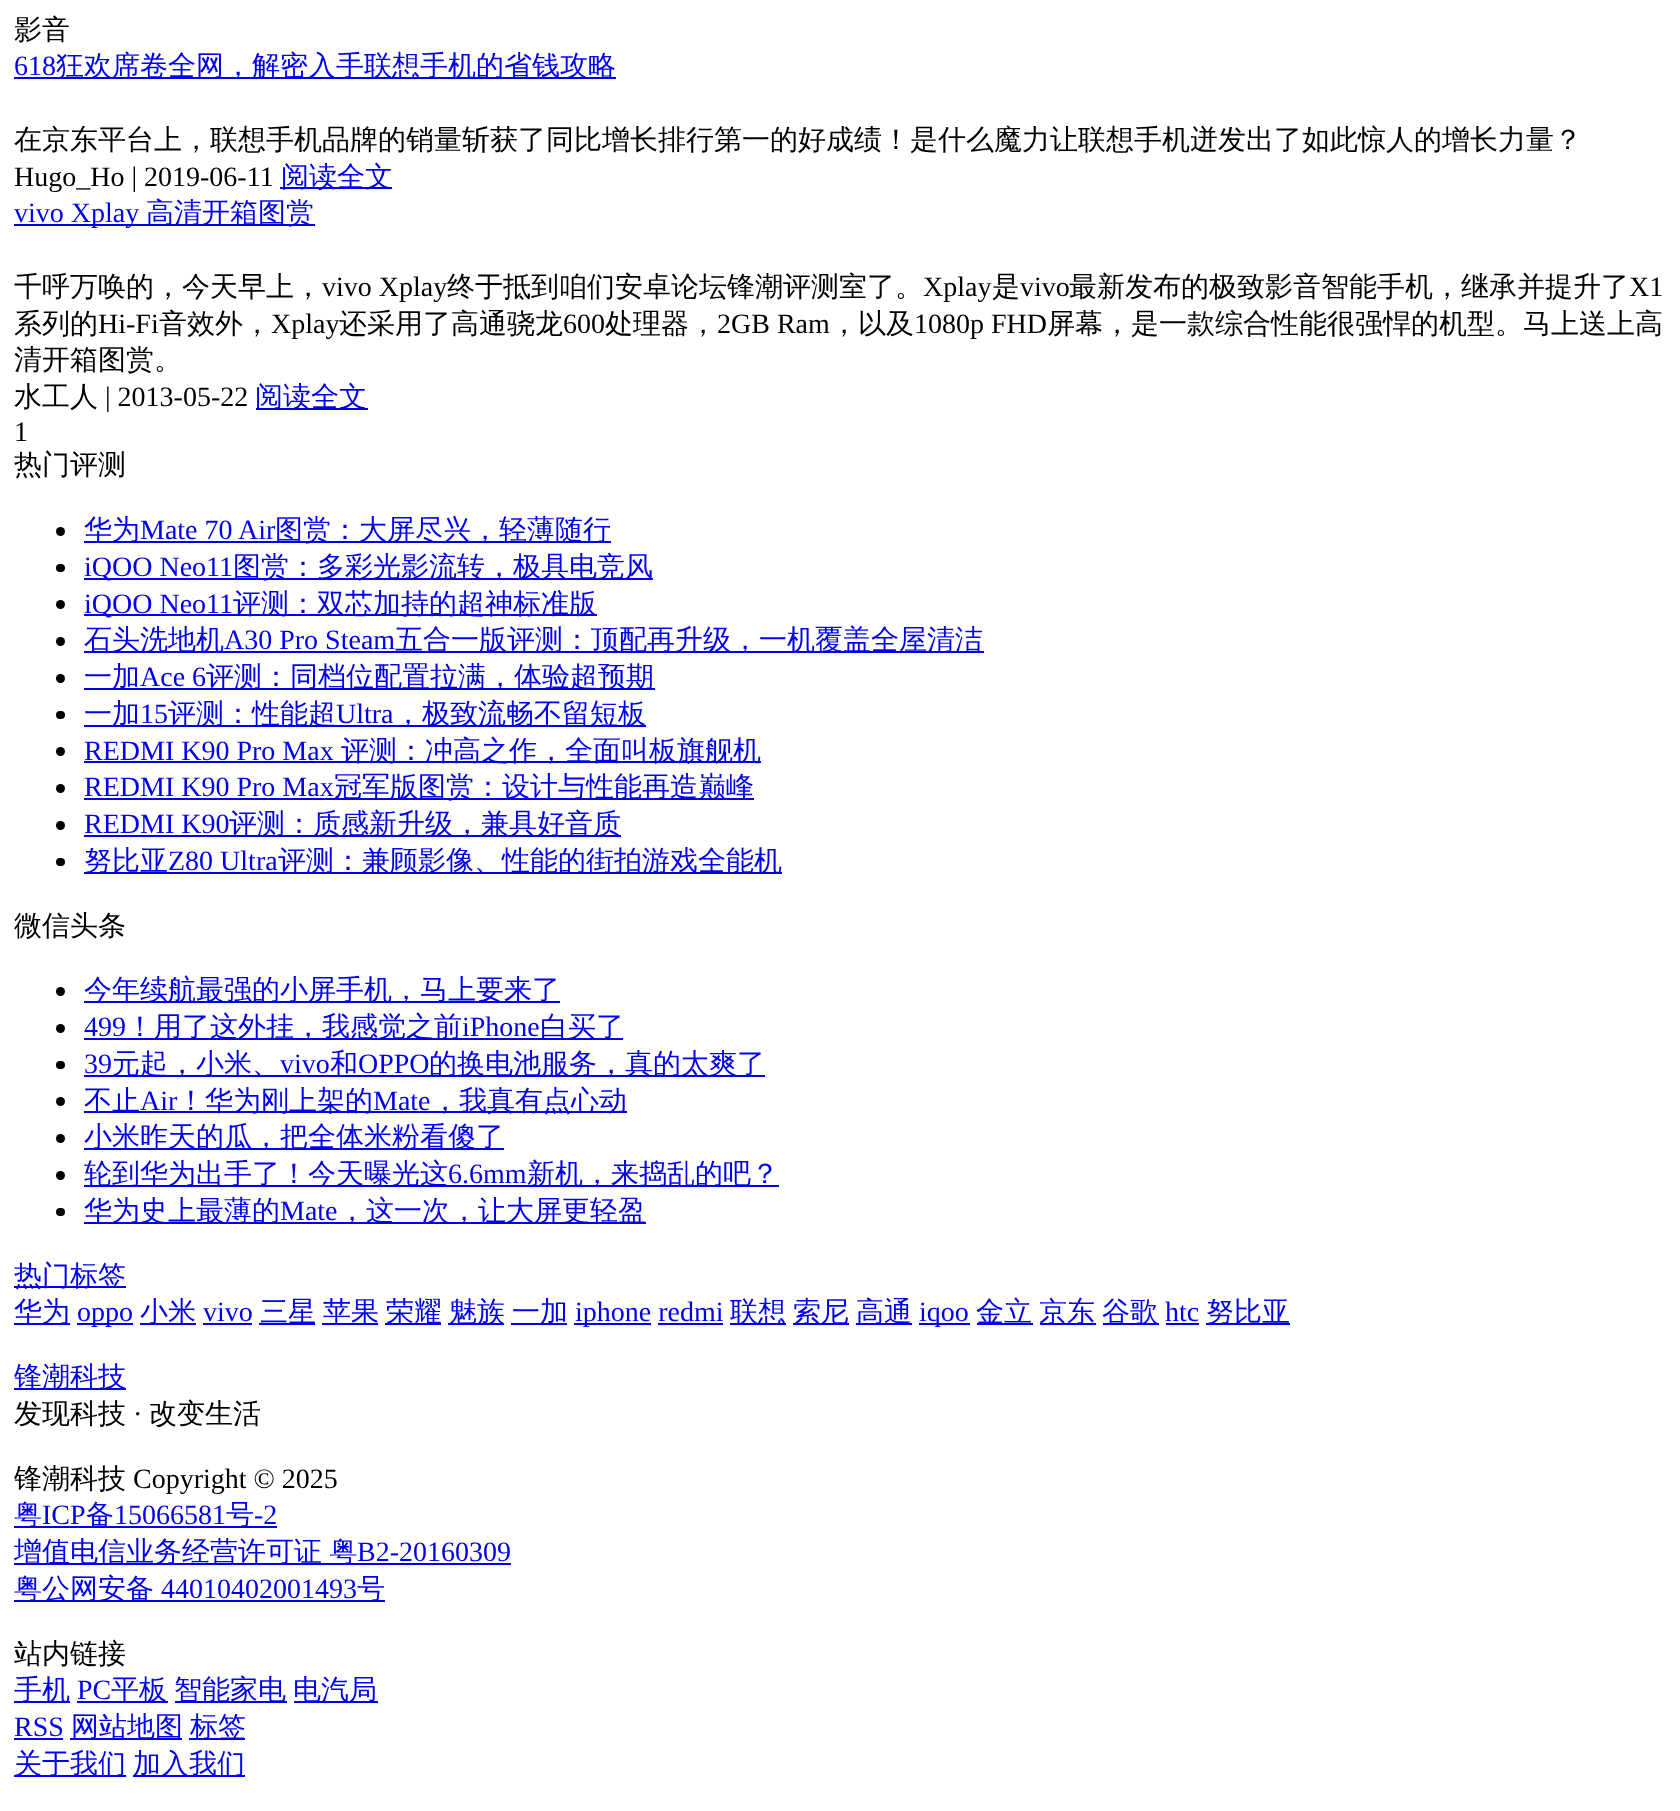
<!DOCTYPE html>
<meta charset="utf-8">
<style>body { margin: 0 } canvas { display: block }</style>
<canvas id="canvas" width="1680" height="1811"></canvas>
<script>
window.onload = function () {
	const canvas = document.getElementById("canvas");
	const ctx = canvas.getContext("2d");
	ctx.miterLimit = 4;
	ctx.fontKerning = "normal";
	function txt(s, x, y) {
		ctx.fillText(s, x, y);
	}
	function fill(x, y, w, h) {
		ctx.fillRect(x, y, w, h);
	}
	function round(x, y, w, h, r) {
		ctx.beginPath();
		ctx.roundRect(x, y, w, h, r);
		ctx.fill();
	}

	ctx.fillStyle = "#FFFFFF";
	fill(0, 0, 1680, 1811);
	ctx.fillStyle = "#0000EE";
	fill(14, 77, 602, 2);
	fill(280, 187, 112, 2);
	fill(14, 224, 301, 2);
	fill(256, 408, 112, 2);
	ctx.fillStyle = "#000000";
	ctx.beginPath();
	ctx.arc(60.5, 531.5, 4.5, 0, Math.PI * 2);
	ctx.fill();
	ctx.fillStyle = "#0000EE";
	fill(84, 541, 527, 2);
	ctx.fillStyle = "#000000";
	round(56, 564, 9, 8, 4);
	ctx.fillStyle = "#0000EE";
	fill(84, 578, 569, 2);
	ctx.fillStyle = "#000000";
	ctx.beginPath();
	ctx.arc(60.5, 604.5, 4.5, 0, Math.PI * 2);
	ctx.fill();
	ctx.fillStyle = "#0000EE";
	fill(84, 614, 513, 2);
	ctx.fillStyle = "#000000";
	ctx.beginPath();
	ctx.arc(60.5, 641.5, 4.5, 0, Math.PI * 2);
	ctx.fill();
	ctx.fillStyle = "#0000EE";
	fill(84, 651, 900, 2);
	ctx.fillStyle = "#000000";
	ctx.beginPath();
	ctx.arc(60.5, 678.5, 4.5, 0, Math.PI * 2);
	ctx.fill();
	ctx.fillStyle = "#0000EE";
	fill(84, 688, 571, 2);
	ctx.fillStyle = "#000000";
	round(56, 711, 9, 8, 4);
	ctx.fillStyle = "#0000EE";
	fill(84, 725, 562, 2);
	ctx.fillStyle = "#000000";
	ctx.beginPath();
	ctx.arc(60.5, 751.5, 4.5, 0, Math.PI * 2);
	ctx.fill();
	ctx.fillStyle = "#0000EE";
	fill(84, 761, 677, 2);
	ctx.fillStyle = "#000000";
	ctx.beginPath();
	ctx.arc(60.5, 788.5, 4.5, 0, Math.PI * 2);
	ctx.fill();
	ctx.fillStyle = "#0000EE";
	fill(84, 798, 670, 2);
	ctx.fillStyle = "#000000";
	ctx.beginPath();
	ctx.arc(60.5, 825.5, 4.5, 0, Math.PI * 2);
	ctx.fill();
	ctx.fillStyle = "#0000EE";
	fill(84, 835, 537, 2);
	ctx.fillStyle = "#000000";
	round(56, 858, 9, 8, 4);
	ctx.fillStyle = "#0000EE";
	fill(84, 872, 698, 2);
	ctx.fillStyle = "#000000";
	ctx.beginPath();
	ctx.arc(60.5, 991.5, 4.5, 0, Math.PI * 2);
	ctx.fill();
	ctx.fillStyle = "#0000EE";
	fill(84, 1001, 476, 2);
	ctx.fillStyle = "#000000";
	ctx.beginPath();
	ctx.arc(60.5, 1028.5, 4.5, 0, Math.PI * 2);
	ctx.fill();
	ctx.fillStyle = "#0000EE";
	fill(84, 1038, 539, 2);
	ctx.fillStyle = "#000000";
	round(56, 1061, 9, 8, 4);
	ctx.fillStyle = "#0000EE";
	fill(84, 1075, 681, 2);
	ctx.fillStyle = "#000000";
	ctx.beginPath();
	ctx.arc(60.5, 1101.5, 4.5, 0, Math.PI * 2);
	ctx.fill();
	ctx.fillStyle = "#0000EE";
	fill(84, 1111, 543, 2);
	ctx.fillStyle = "#000000";
	ctx.beginPath();
	ctx.arc(60.5, 1138.5, 4.5, 0, Math.PI * 2);
	ctx.fill();
	ctx.fillStyle = "#0000EE";
	fill(84, 1148, 420, 2);
	ctx.fillStyle = "#000000";
	ctx.beginPath();
	ctx.arc(60.5, 1175.5, 4.5, 0, Math.PI * 2);
	ctx.fill();
	ctx.fillStyle = "#0000EE";
	fill(84, 1185, 695, 2);
	ctx.fillStyle = "#000000";
	round(56, 1208, 9, 8, 4);
	ctx.fillStyle = "#0000EE";
	fill(84, 1222, 562, 2);
	fill(14, 1286, 112, 2);
	fill(14, 1323, 56, 2);
	fill(77, 1323, 56, 2);
	fill(140, 1323, 56, 2);
	fill(203, 1323, 49, 2);
	fill(259, 1323, 56, 2);
	fill(322, 1323, 56, 2);
	fill(385, 1323, 56, 2);
	fill(448, 1323, 56, 2);
	fill(511, 1323, 56, 2);
	fill(574, 1323, 77, 2);
	fill(730, 1323, 56, 2);
	fill(793, 1323, 56, 2);
	fill(856, 1323, 56, 2);
	fill(919, 1323, 51, 2);
	fill(977, 1323, 56, 2);
	fill(1040, 1323, 56, 2);
	fill(1103, 1323, 56, 2);
	fill(1166, 1323, 33, 2);
	fill(1206, 1323, 84, 2);
	fill(658, 1323, 65, 2);
	fill(14, 1388, 112, 2);
	fill(14, 1526, 263, 2);
	fill(14, 1563, 497, 2);
	fill(14, 1600, 371, 2);
	fill(14, 1701, 56, 2);
	fill(77, 1701, 91, 2);
	fill(175, 1701, 112, 2);
	fill(294, 1701, 84, 2);
	fill(14, 1738, 49, 2);
	fill(70, 1738, 112, 2);
	fill(189, 1738, 56, 2);
	fill(14, 1775, 112, 2);
	fill(133, 1775, 112, 2);
	ctx.font = "500 28px WenQuanYi Zen Hei";
	ctx.fillStyle = "#000000";
	txt("影音", 14, 39);
	ctx.font = "28px Liberation Serif";
	ctx.fillStyle = "#0000EE";
	txt("618", 14, 75);
	ctx.font = "500 28px WenQuanYi Zen Hei";
	txt("狂欢席卷全网，解密入手联想手机的省钱攻略", 56, 75);
	ctx.fillStyle = "#000000";
	txt("在京东平台上，联想手机品牌的销量斩获了同比增长排行第一的好成绩！是什么魔力让联想手机迸发出了如此惊人的增长力量？", 14, 149);
	ctx.font = "28px Liberation Serif";
	txt("Hugo_Ho | 2019-06-11", 14, 186);
	ctx.font = "500 28px WenQuanYi Zen Hei";
	ctx.fillStyle = "#0000EE";
	txt("阅读全文", 281, 186);
	ctx.font = "28px Liberation Serif";
	txt("vivo Xplay", 14, 222);
	ctx.font = "500 28px WenQuanYi Zen Hei";
	txt("高清开箱图赏", 146, 222);
	ctx.fillStyle = "#000000";
	txt("千呼万唤的，今天早上，", 14, 296);
	ctx.font = "28px Liberation Serif";
	txt("vivo Xplay", 322, 296);
	ctx.font = "500 28px WenQuanYi Zen Hei";
	txt("终于抵到咱们安卓论坛锋潮评测室了。", 447, 296);
	ctx.font = "28px Liberation Serif";
	txt("Xplay", 923, 296);
	ctx.font = "500 28px WenQuanYi Zen Hei";
	txt("是", 992, 296);
	ctx.font = "28px Liberation Serif";
	txt("vivo", 1020, 296);
	ctx.font = "500 28px WenQuanYi Zen Hei";
	txt("最新发布的极致影音智能手机，继承并提升了", 1069, 296);
	ctx.font = "28px Liberation Serif";
	txt("X1", 1629, 296);
	ctx.font = "500 28px WenQuanYi Zen Hei";
	txt("系列的", 14, 333);
	ctx.font = "28px Liberation Serif";
	txt("Hi-Fi", 98, 333);
	ctx.font = "500 28px WenQuanYi Zen Hei";
	txt("音效外，", 159, 333);
	ctx.font = "28px Liberation Serif";
	txt("Xplay", 271, 333);
	ctx.font = "500 28px WenQuanYi Zen Hei";
	txt("还采用了高通骁龙", 339, 333);
	ctx.font = "28px Liberation Serif";
	txt("600", 563, 333);
	ctx.font = "500 28px WenQuanYi Zen Hei";
	txt("处理器，", 605, 333);
	ctx.font = "28px Liberation Serif";
	txt("2GB Ram", 717, 333);
	ctx.font = "500 28px WenQuanYi Zen Hei";
	txt("，以及", 830, 333);
	ctx.font = "28px Liberation Serif";
	txt("1080p FHD", 914, 333);
	ctx.font = "500 28px WenQuanYi Zen Hei";
	txt("屏幕，是一款综合性能很强悍的机型。马上送上高", 1047, 333);
	txt("清开箱图赏。", 14, 369);
	txt("水工人", 14, 406);
	ctx.font = "28px Liberation Serif";
	txt("| 2013-05-22", 105, 406);
	ctx.font = "500 28px WenQuanYi Zen Hei";
	ctx.fillStyle = "#0000EE";
	txt("阅读全文", 255, 406);
	ctx.font = "28px Liberation Serif";
	ctx.fillStyle = "#000000";
	txt("1", 14, 441);
	ctx.font = "500 28px WenQuanYi Zen Hei";
	txt("热门评测", 14, 474);
	ctx.fillStyle = "#0000EE";
	txt("华为", 84, 539);
	ctx.font = "28px Liberation Serif";
	txt("Mate 70 Air", 140, 539);
	ctx.font = "500 28px WenQuanYi Zen Hei";
	txt("图赏：大屏尽兴，轻薄随行", 275, 539);
	ctx.font = "28px Liberation Serif";
	txt("iQOO Neo11", 84, 576);
	ctx.font = "500 28px WenQuanYi Zen Hei";
	txt("图赏：多彩光影流转，极具电竞风", 233, 576);
	ctx.font = "28px Liberation Serif";
	txt("iQOO Neo11", 84, 613);
	ctx.font = "500 28px WenQuanYi Zen Hei";
	txt("评测：双芯加持的超神标准版", 233, 613);
	txt("石头洗地机", 84, 649);
	ctx.font = "28px Liberation Serif";
	txt("A30 Pro Steam", 224, 649);
	ctx.font = "500 28px WenQuanYi Zen Hei";
	txt("五合一版评测：顶配再升级，一机覆盖全屋清洁", 395, 649);
	txt("一加", 84, 686);
	ctx.font = "28px Liberation Serif";
	txt("Ace 6", 140, 686);
	ctx.font = "500 28px WenQuanYi Zen Hei";
	txt("评测：同档位配置拉满，体验超预期", 206, 686);
	txt("一加", 84, 723);
	ctx.font = "28px Liberation Serif";
	txt("15", 140, 723);
	ctx.font = "500 28px WenQuanYi Zen Hei";
	txt("评测：性能超", 168, 723);
	ctx.font = "28px Liberation Serif";
	txt("Ultra", 336, 723);
	ctx.font = "500 28px WenQuanYi Zen Hei";
	txt("，极致流畅不留短板", 394, 723);
	ctx.font = "28px Liberation Serif";
	txt("REDMI K90 Pro Max", 84, 760);
	ctx.font = "500 28px WenQuanYi Zen Hei";
	txt("评测：冲高之作，全面叫板旗舰机", 341, 760);
	ctx.font = "28px Liberation Serif";
	txt("REDMI K90 Pro Max", 84, 796);
	ctx.font = "500 28px WenQuanYi Zen Hei";
	txt("冠军版图赏：设计与性能再造巅峰", 334, 796);
	ctx.font = "28px Liberation Serif";
	txt("REDMI K90", 84, 833);
	ctx.font = "500 28px WenQuanYi Zen Hei";
	txt("评测：质感新升级，兼具好音质", 229, 833);
	txt("努比亚", 84, 870);
	ctx.font = "28px Liberation Serif";
	txt("Z80 Ultra", 168, 870);
	ctx.font = "500 28px WenQuanYi Zen Hei";
	txt("评测：兼顾影像、性能的街拍游戏全能机", 278, 870);
	ctx.fillStyle = "#000000";
	txt("微信头条", 14, 935);
	ctx.fillStyle = "#0000EE";
	txt("今年续航最强的小屏手机，马上要来了", 84, 999);
	ctx.font = "28px Liberation Serif";
	txt("499", 84, 1036);
	ctx.font = "500 28px WenQuanYi Zen Hei";
	txt("！用了这外挂，我感觉之前", 126, 1036);
	ctx.font = "28px Liberation Serif";
	txt("iPhone", 462, 1036);
	ctx.font = "500 28px WenQuanYi Zen Hei";
	txt("白买了", 540, 1036);
	ctx.font = "28px Liberation Serif";
	txt("39", 84, 1073);
	ctx.font = "500 28px WenQuanYi Zen Hei";
	txt("元起，小米、", 112, 1073);
	ctx.font = "28px Liberation Serif";
	txt("vivo", 280, 1073);
	ctx.font = "500 28px WenQuanYi Zen Hei";
	txt("和", 330, 1073);
	ctx.font = "28px Liberation Serif";
	txt("OPPO", 358, 1073);
	ctx.font = "500 28px WenQuanYi Zen Hei";
	txt("的换电池服务，真的太爽了", 429, 1073);
	txt("不止", 84, 1110);
	ctx.font = "28px Liberation Serif";
	txt("Air", 140, 1110);
	ctx.font = "500 28px WenQuanYi Zen Hei";
	txt("！华为刚上架的", 177, 1110);
	ctx.font = "28px Liberation Serif";
	txt("Mate", 373, 1110);
	ctx.font = "500 28px WenQuanYi Zen Hei";
	txt("，我真有点心动", 431, 1110);
	txt("小米昨天的瓜，把全体米粉看傻了", 84, 1146);
	txt("轮到华为出手了！今天曝光这", 84, 1183);
	ctx.font = "28px Liberation Serif";
	txt("6.6mm", 448, 1183);
	ctx.font = "500 28px WenQuanYi Zen Hei";
	txt("新机，来捣乱的吧？", 527, 1183);
	txt("华为史上最薄的", 84, 1220);
	ctx.font = "28px Liberation Serif";
	txt("Mate", 280, 1220);
	ctx.font = "500 28px WenQuanYi Zen Hei";
	txt("，这一次，让大屏更轻盈", 338, 1220);
	txt("热门标签", 14, 1285);
	txt("华为", 14, 1321);
	ctx.font = "28px Liberation Serif";
	txt("oppo", 77, 1321);
	ctx.font = "500 28px WenQuanYi Zen Hei";
	txt("小米", 140, 1321);
	ctx.font = "28px Liberation Serif";
	txt("vivo", 203, 1321);
	ctx.font = "500 28px WenQuanYi Zen Hei";
	txt("三星", 260, 1321);
	txt("苹果", 323, 1321);
	txt("荣耀", 386, 1321);
	txt("魅族", 449, 1321);
	txt("一加", 512, 1321);
	ctx.font = "28px Liberation Serif";
	txt("iphone redmi", 575, 1321);
	ctx.font = "500 28px WenQuanYi Zen Hei";
	txt("联想", 730, 1321);
	txt("索尼", 793, 1321);
	txt("高通", 856, 1321);
	ctx.font = "28px Liberation Serif";
	txt("iqoo", 919, 1321);
	ctx.font = "500 28px WenQuanYi Zen Hei";
	txt("金立", 976, 1321);
	txt("京东", 1039, 1321);
	txt("谷歌", 1102, 1321);
	ctx.font = "28px Liberation Serif";
	txt("htc", 1165, 1321);
	ctx.font = "500 28px WenQuanYi Zen Hei";
	txt("努比亚", 1206, 1321);
	txt("锋潮科技", 14, 1386);
	ctx.fillStyle = "#000000";
	txt("发现科技", 14, 1423);
	ctx.font = "28px Liberation Serif";
	txt("·", 133, 1423);
	ctx.font = "500 28px WenQuanYi Zen Hei";
	txt("改变生活", 149, 1423);
	txt("锋潮科技", 14, 1488);
	ctx.font = "28px Liberation Serif";
	txt("Copyright © 2025", 133, 1488);
	ctx.font = "500 28px WenQuanYi Zen Hei";
	ctx.fillStyle = "#0000EE";
	txt("粤", 14, 1524);
	ctx.font = "28px Liberation Serif";
	txt("ICP", 42, 1524);
	ctx.font = "500 28px WenQuanYi Zen Hei";
	txt("备", 86, 1524);
	ctx.font = "28px Liberation Serif";
	txt("15066581", 114, 1524);
	ctx.font = "500 28px WenQuanYi Zen Hei";
	txt("号", 226, 1524);
	ctx.font = "28px Liberation Serif";
	txt("-2", 254, 1524);
	ctx.wordSpacing = "-1px";
	ctx.font = "500 28px WenQuanYi Zen Hei";
	txt("增值电信业务经营许可证 粤", 14, 1561);
	ctx.wordSpacing = "0px";
	ctx.font = "28px Liberation Serif";
	txt("B2-20160309", 357, 1561);
	ctx.font = "500 28px WenQuanYi Zen Hei";
	txt("粤公网安备", 14, 1598);
	ctx.font = "28px Liberation Serif";
	txt("44010402001493", 161, 1598);
	ctx.font = "500 28px WenQuanYi Zen Hei";
	txt("号", 357, 1598);
	ctx.fillStyle = "#000000";
	txt("站内链接", 14, 1663);
	ctx.fillStyle = "#0000EE";
	txt("手机", 14, 1699);
	ctx.font = "28px Liberation Serif";
	txt("PC", 77, 1699);
	ctx.font = "500 28px WenQuanYi Zen Hei";
	txt("平板", 111, 1699);
	txt("智能家电", 174, 1699);
	txt("电汽局", 293, 1699);
	ctx.font = "28px Liberation Serif";
	txt("RSS", 14, 1736);
	ctx.font = "500 28px WenQuanYi Zen Hei";
	txt("网站地图", 71, 1736);
	txt("标签", 190, 1736);
	txt("关于我们", 14, 1773);
	txt("加入我们", 133, 1773);
};
</script>
